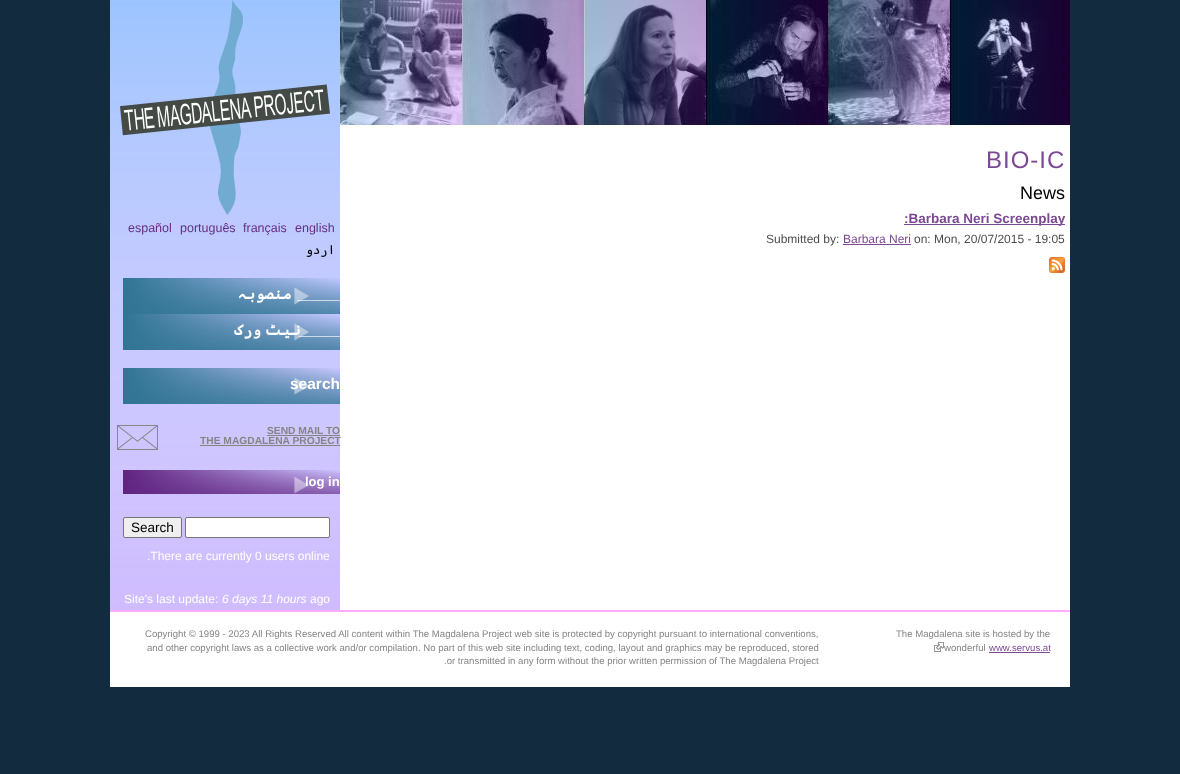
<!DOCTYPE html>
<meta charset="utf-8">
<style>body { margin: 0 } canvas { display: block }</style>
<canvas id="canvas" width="1180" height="774"></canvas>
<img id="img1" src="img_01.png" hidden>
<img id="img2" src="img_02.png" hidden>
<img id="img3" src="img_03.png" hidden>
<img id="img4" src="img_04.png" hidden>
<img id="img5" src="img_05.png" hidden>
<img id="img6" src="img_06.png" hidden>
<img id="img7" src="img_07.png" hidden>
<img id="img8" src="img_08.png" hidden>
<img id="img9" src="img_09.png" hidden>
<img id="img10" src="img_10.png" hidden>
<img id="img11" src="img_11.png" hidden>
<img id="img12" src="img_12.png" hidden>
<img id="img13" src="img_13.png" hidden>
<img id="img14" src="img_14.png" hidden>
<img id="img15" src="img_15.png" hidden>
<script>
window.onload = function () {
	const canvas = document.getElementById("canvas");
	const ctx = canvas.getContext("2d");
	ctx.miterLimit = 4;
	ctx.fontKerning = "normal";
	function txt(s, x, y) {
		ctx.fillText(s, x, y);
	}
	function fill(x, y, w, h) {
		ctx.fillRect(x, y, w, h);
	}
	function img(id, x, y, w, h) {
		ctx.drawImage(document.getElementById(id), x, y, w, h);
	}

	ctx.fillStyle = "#122B3F";
	fill(0, 0, 1180, 774);
	ctx.fillStyle = "#FFFFFF";
	fill(340, 125, 730, 485);
	ctx.fillStyle = "#C8AFFF";
	fill(110, 5, 230, 605);
	img("img1", 110, 0, 230, 610);
	img("img2", 120, 0, 210, 215);
	img("img3", 340, 0, 122, 125);
	img("img4", 462, 0, 122, 125);
	img("img5", 584, 0, 122, 125);
	img("img6", 706, 0, 122, 125);
	img("img7", 828, 0, 122, 125);
	img("img8", 950, 0, 120, 125);
	ctx.fillStyle = "#7B4994";
	fill(904, 224, 161, 1);
	fill(843, 244, 68, 1);
	img("img9", 1049, 257, 16, 16);
	img("img10", 123, 278, 217, 36);
	img("img11", 123, 314, 217, 36);
	img("img12", 123, 368, 217, 36);
	img("img13", 117, 425, 41, 25);
	ctx.fillStyle = "#868585";
	fill(267, 435, 73, 1);
	fill(200, 445, 140, 1);
	img("img14", 123, 470, 217, 24);
	ctx.fillStyle = "#EFEFEF";
	ctx.beginPath();
	ctx.roundRect(123.5, 517.5, 58, 20, 1.5);
	ctx.fill();
	ctx.strokeStyle = "#767676";
	ctx.stroke();
	ctx.fillStyle = "#FFFFFF";
	ctx.beginPath();
	ctx.roundRect(185.5, 517.5, 144, 20, 1.5);
	ctx.fill();
	ctx.stroke();
	fill(110, 612, 960, 75);
	ctx.fillStyle = "#FFABFF";
	fill(110, 610, 960, 2);
	img("img15", 934, 642, 10, 10);
	ctx.fillStyle = "#7B4994";
	fill(989, 652, 61, 1);
	ctx.letterSpacing = "1px";
	ctx.font = "24px Liberation Sans";
	txt("BIO-IC", 986, 168);
	ctx.letterSpacing = "0px";
	ctx.font = "18px Liberation Sans";
	ctx.fillStyle = "#000000";
	txt("News", 1020, 199);
	ctx.font = "bold 13.5px Liberation Sans";
	ctx.fillStyle = "#7B4994";
	txt(":Barbara Neri Screenplay", 904, 223);
	ctx.font = "12px Liberation Sans";
	ctx.fillStyle = "#4D4D4D";
	txt("Submitted by:", 766, 243);
	ctx.fillStyle = "#7B4994";
	txt("Barbara Neri", 843, 243);
	ctx.fillStyle = "#4D4D4D";
	txt("on: Mon, 20/07/2015 - 19:05", 914, 243);
	ctx.font = "12.5px Liberation Sans";
	ctx.fillStyle = "#662D85";
	txt("español", 128, 232);
	txt("português", 180, 232);
	txt("français", 243, 232);
	txt("english", 295, 232);
	ctx.direction = "rtl";
	ctx.font = "12.5px Cascadia Code";
	ctx.fillStyle = "#000000";
	txt("اردو", 335, 254);
	ctx.font = "bold 15.5px Cascadia Code";
	ctx.fillStyle = "#FFFFFF";
	txt("منصوبہ", 292, 299);
	ctx.font = "bold 15.5px Liberation Sans";
	txt("_____", 340, 299);
	ctx.wordSpacing = "-6px";
	ctx.font = "bold 15.5px Cascadia Code";
	txt("نیٹ ورک", 301, 335);
	ctx.wordSpacing = "0px";
	ctx.font = "bold 15.5px Liberation Sans";
	txt("_____", 342, 335);
	ctx.direction = "ltr";
	txt("search", 290, 389);
	ctx.font = "bold 10.25px Liberation Sans";
	ctx.fillStyle = "#868585";
	txt("SEND MAIL TO", 267, 434);
	txt("THE MAGDALENA PROJECT", 200, 444);
	ctx.font = "bold 13px Liberation Sans";
	ctx.fillStyle = "#FFFFFF";
	txt("log in", 305, 486);
	ctx.font = "13.5px Liberation Sans";
	ctx.fillStyle = "#000000";
	txt("Search", 131, 532);
	ctx.font = "12px Liberation Sans";
	ctx.fillStyle = "#FFFFFF";
	txt(".There are currently 0 users online", 147, 560);
	txt("Site's last update:", 124, 603);
	ctx.font = "italic 12px Liberation Sans";
	txt("6 days 11 hours", 222, 603);
	ctx.font = "12px Liberation Sans";
	txt("ago", 310, 603);
	ctx.font = "9.6px Liberation Sans";
	ctx.fillStyle = "#868585";
	txt("Copyright © 1999 - 2023 All Rights Reserved All content within The Magdalena Project web site is protected by copyright pursuant to international conventions,", 145, 637);
	txt("and other copyright laws as a collective work and/or compilation. No part of this web site including text, coding, layout and graphics may be reproduced, stored", 147, 651);
	txt(".or transmitted in any form without the prior written permission of The Magdalena Project", 444, 664);
	txt("The Magdalena site is hosted by the", 896, 637);
	txt("wonderful", 944, 651);
	ctx.fillStyle = "#7B4994";
	txt("www.servus.at", 989, 651);
};
</script>
